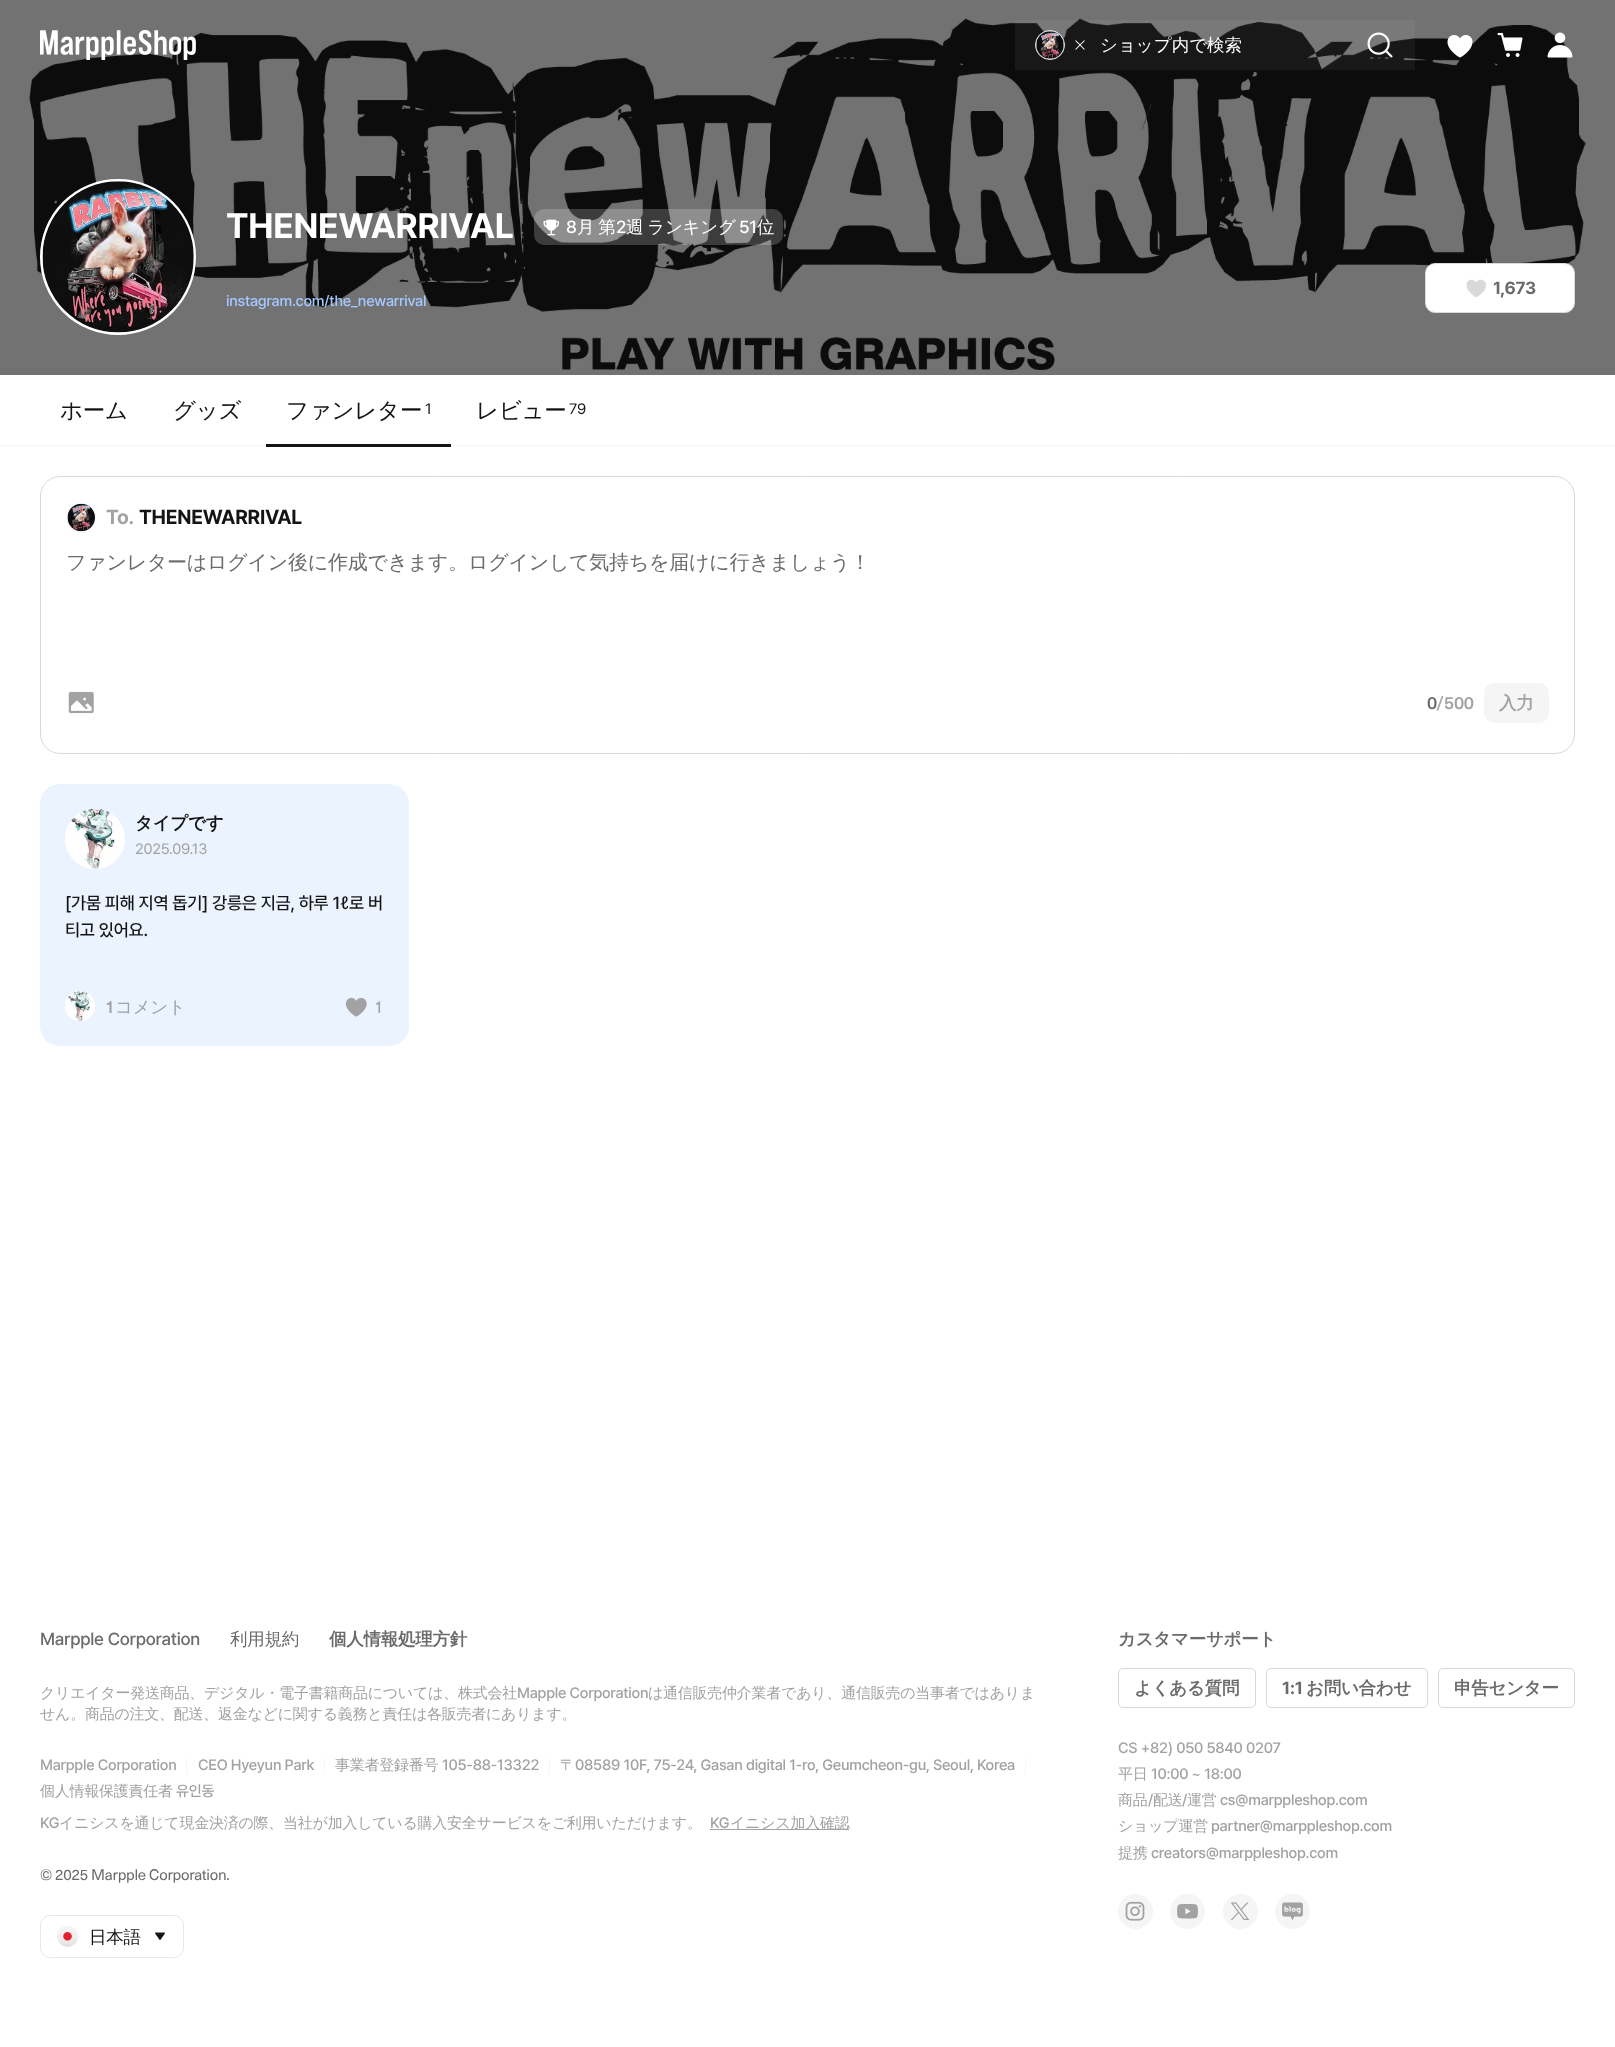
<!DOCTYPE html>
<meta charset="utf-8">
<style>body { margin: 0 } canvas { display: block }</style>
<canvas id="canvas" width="1615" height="2047"></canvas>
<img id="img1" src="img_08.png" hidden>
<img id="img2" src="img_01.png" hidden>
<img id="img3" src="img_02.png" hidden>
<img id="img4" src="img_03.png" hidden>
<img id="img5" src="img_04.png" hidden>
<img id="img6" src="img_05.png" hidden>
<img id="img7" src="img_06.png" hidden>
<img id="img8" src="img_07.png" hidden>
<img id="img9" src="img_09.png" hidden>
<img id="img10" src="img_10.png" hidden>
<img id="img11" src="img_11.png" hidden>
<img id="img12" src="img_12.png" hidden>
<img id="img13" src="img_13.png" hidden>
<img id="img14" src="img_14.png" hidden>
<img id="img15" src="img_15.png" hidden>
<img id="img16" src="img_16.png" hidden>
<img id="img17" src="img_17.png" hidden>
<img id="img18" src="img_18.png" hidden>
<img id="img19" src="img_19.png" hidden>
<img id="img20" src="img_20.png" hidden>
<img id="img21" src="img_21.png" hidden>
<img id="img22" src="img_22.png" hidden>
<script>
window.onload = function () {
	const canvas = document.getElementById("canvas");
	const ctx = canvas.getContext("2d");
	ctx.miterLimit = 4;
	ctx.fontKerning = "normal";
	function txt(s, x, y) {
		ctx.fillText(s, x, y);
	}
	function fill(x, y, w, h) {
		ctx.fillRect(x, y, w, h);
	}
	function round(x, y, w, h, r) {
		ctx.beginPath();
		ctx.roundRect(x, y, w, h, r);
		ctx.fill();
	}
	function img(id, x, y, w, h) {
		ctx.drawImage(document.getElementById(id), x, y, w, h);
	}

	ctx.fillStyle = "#FFFFFF";
	fill(0, 0, 1615, 2047);
	ctx.fillStyle = "#727272";
	fill(0, 0, 1615, 375);
	img("img1", 29, 17, 1557, 355);
	img("img2", 40, 30, 156, 30);
	ctx.fillStyle = "rgba(255, 255, 255, 0.05)";
	fill(1015, 20, 400, 50);
	ctx.fillStyle = "#FFFFFF";
	ctx.beginPath();
	ctx.arc(1050, 45, 14.5, 0, Math.PI * 2);
	ctx.fill();
	ctx.strokeStyle = "#D9D9D9";
	ctx.stroke();
	img("img3", 1036, 31, 28, 28);
	img("img4", 1075, 40, 10, 10);
	img("img5", 1367, 32, 26, 26);
	img("img6", 1447, 35, 26, 23);
	img("img7", 1497, 32, 26, 25);
	img("img8", 1547, 32, 26, 26);
	ctx.beginPath();
	ctx.arc(118, 257, 76.5, 0, Math.PI * 2);
	ctx.strokeStyle = "#FFFFFF";
	ctx.lineWidth = 3;
	ctx.stroke();
	img("img9", 42, 181, 152, 152);
	ctx.fillStyle = "rgba(255, 255, 255, 0.2)";
	round(534, 209, 249, 36, 10);
	img("img10", 543, 219, 17, 17);
	ctx.fillStyle = "#FFFFFF";
	ctx.beginPath();
	ctx.roundRect(1425.5, 263.5, 149, 49, 9.5);
	ctx.fill();
	ctx.strokeStyle = "#D9D9D9";
	ctx.lineWidth = 1;
	ctx.stroke();
	img("img11", 1466, 279, 20, 19);
	ctx.fillStyle = "#F5F5F5";
	fill(0, 445, 1615, 1);
	ctx.fillStyle = "#141414";
	fill(266, 444, 185, 3);
	ctx.beginPath();
	ctx.roundRect(40.5, 476.5, 1534, 277, 19.5);
	ctx.stroke();
	ctx.beginPath();
	ctx.arc(81, 518, 14.5, 0, Math.PI * 2);
	ctx.strokeStyle = "#F5F5F5";
	ctx.stroke();
	img("img12", 67, 503, 28, 29);
	img("img13", 68, 691, 26, 23);
	ctx.fillStyle = "#F5F5F5";
	round(1484, 683, 65, 40, 10);
	ctx.fillStyle = "#EBF3FE";
	round(40, 784, 369, 262, 20);
	ctx.fillStyle = "#FFFFFF";
	ctx.beginPath();
	ctx.arc(95, 839, 30, 0, Math.PI * 2);
	ctx.fill();
	img("img14", 65, 809, 60, 60);
	ctx.beginPath();
	ctx.arc(80, 1006, 15, 0, Math.PI * 2);
	ctx.fill();
	img("img15", 65, 991, 30, 30);
	img("img16", 345, 997, 22, 20);
	ctx.fillStyle = "#F5F5F5";
	fill(186, 1759, 1, 15);
	fill(324, 1759, 1, 15);
	fill(549, 1759, 1, 15);
	fill(1025, 1759, 1, 15);
	ctx.fillStyle = "#A2A2A2";
	fill(710, 1829, 139, 1);
	ctx.beginPath();
	ctx.roundRect(40.5, 1915.5, 143, 42, 9.5);
	ctx.strokeStyle = "#E7E7E7";
	ctx.stroke();
	img("img17", 57, 1926, 21, 21);
	img("img18", 155, 1932, 10, 8);
	ctx.beginPath();
	ctx.roundRect(1118.5, 1668.5, 137, 39, 4.5);
	ctx.strokeStyle = "#D9D9D9";
	ctx.stroke();
	ctx.beginPath();
	ctx.roundRect(1266.5, 1668.5, 161, 39, 4.5);
	ctx.stroke();
	ctx.beginPath();
	ctx.roundRect(1438.5, 1668.5, 136, 39, 4.5);
	ctx.stroke();
	ctx.fillStyle = "#F5F5F5";
	ctx.beginPath();
	ctx.arc(1135.5, 1911.5, 17.5, 0, Math.PI * 2);
	ctx.fill();
	img("img19", 1125, 1901, 20, 20);
	ctx.beginPath();
	ctx.arc(1187.5, 1911.5, 17.5, 0, Math.PI * 2);
	ctx.fill();
	img("img20", 1177, 1903, 21, 16);
	ctx.beginPath();
	ctx.arc(1240.5, 1911.5, 17.5, 0, Math.PI * 2);
	ctx.fill();
	img("img21", 1230, 1902, 20, 18);
	ctx.beginPath();
	ctx.arc(1292.5, 1911.5, 17.5, 0, Math.PI * 2);
	ctx.fill();
	img("img22", 1282, 1902, 21, 18);
	ctx.font = "500 17.5px WenQuanYi Zen Hei";
	ctx.fillStyle = "#FFFFFF";
	txt("ショップ内で検索", 1100, 51);
	ctx.letterSpacing = "-0.25px";
	ctx.font = "bold 35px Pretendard";
	txt("THENEWARRIVAL", 226, 238);
	ctx.font = "500 17.5px Pretendard";
	txt("8", 566, 233);
	ctx.wordSpacing = "-1px";
	ctx.font = "500 17.5px WenQuanYi Zen Hei";
	txt("月 第", 577, 233);
	ctx.wordSpacing = "0px";
	ctx.font = "500 17.5px Pretendard";
	txt("2", 616, 233);
	ctx.wordSpacing = "-1px";
	ctx.font = "500 17.5px WenQuanYi Zen Hei";
	txt("週 ランキング", 626, 233);
	ctx.wordSpacing = "0px";
	ctx.font = "500 17.5px Pretendard";
	txt("51", 739, 233);
	ctx.font = "500 17.5px WenQuanYi Zen Hei";
	txt("位", 757, 233);
	ctx.font = "bold 17.5px Pretendard";
	ctx.fillStyle = "#6B6B6B";
	txt("1,673", 1493, 294);
	ctx.font = "500 15px Pretendard";
	ctx.fillStyle = "#A4C8FF";
	txt("instagram.com/the_newarrival", 226, 306);
	ctx.font = "500 22.5px WenQuanYi Zen Hei";
	ctx.fillStyle = "#141414";
	txt("ホーム", 60, 418);
	txt("グッズ", 173, 418);
	txt("ファンレター", 286, 418);
	ctx.font = "15px Pretendard";
	txt("1", 425, 414);
	ctx.font = "500 22.5px WenQuanYi Zen Hei";
	txt("レビュー", 476, 418);
	ctx.font = "15px Pretendard";
	txt("79", 569, 414);
	ctx.font = "bold 20px Pretendard";
	ctx.fillStyle = "#A2A2A2";
	txt("To.", 106, 524);
	ctx.fillStyle = "#141414";
	txt("THENEWARRIVAL", 139, 524);
	ctx.font = "500 20px WenQuanYi Zen Hei";
	ctx.fillStyle = "#6B6B6B";
	txt("ファンレターはログイン後に作成できます。ログインして気持ちを届けに行きましょう！", 66, 569);
	ctx.font = "500 17.5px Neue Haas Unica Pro";
	txt("0", 1427, 709);
	ctx.fillStyle = "#A2A2A2";
	txt("/500", 1436, 709);
	ctx.font = "bold 17.5px WenQuanYi Zen Hei";
	txt("入力", 1499, 709);
	ctx.fillStyle = "#141414";
	txt("タイプです", 135, 829);
	ctx.font = "15px Pretendard";
	ctx.fillStyle = "#A2A2A2";
	txt("2025.09.13", 135, 854);
	ctx.font = "500 17.5px Pretendard";
	ctx.fillStyle = "#141414";
	txt("[가뭄 피해 지역 돕기] 강릉은 지금, 하루 1", 65, 909);
	ctx.font = "500 17.5px Noto Sans";
	txt("ℓ", 340, 909);
	ctx.font = "500 17.5px Pretendard";
	txt("로 버", 349, 909);
	txt("티고 있어요.", 65, 936);
	ctx.font = "500 17.5px Neue Haas Unica Pro";
	ctx.fillStyle = "#A2A2A2";
	txt("1", 105, 1013);
	ctx.font = "500 17.5px WenQuanYi Zen Hei";
	txt("コメント", 115, 1013);
	ctx.font = "17.5px Neue Haas Unica Pro";
	txt("1", 374, 1013);
	ctx.font = "500 17.5px Pretendard";
	ctx.fillStyle = "#6B6B6B";
	txt("Marpple Corporation", 40, 1645);
	ctx.font = "500 17.5px WenQuanYi Zen Hei";
	txt("利用規約", 230, 1645);
	ctx.font = "bold 17.5px WenQuanYi Zen Hei";
	txt("個人情報処理方針", 329, 1645);
	ctx.font = "500 15px WenQuanYi Zen Hei";
	ctx.fillStyle = "#A2A2A2";
	txt("クリエイター発送商品、デジタル・電子書籍商品については、株式会社", 40, 1698);
	ctx.font = "500 15px Pretendard";
	txt("Mapple Corporation", 517, 1698);
	ctx.font = "500 15px WenQuanYi Zen Hei";
	txt("は通信販売仲介業者であり、通信販売の当事者ではありま", 648, 1698);
	txt("せん。商品の注文、配送、返金などに関する義務と責任は各販売者にあります。", 40, 1719);
	ctx.font = "500 15px Pretendard";
	txt("Marpple Corporation", 40, 1770);
	txt("CEO Hyeyun Park", 198, 1770);
	ctx.font = "500 15px WenQuanYi Zen Hei";
	txt("事業者登録番号", 335, 1770);
	ctx.font = "500 15px Pretendard";
	txt("105-88-13322", 442, 1770);
	ctx.font = "500 15px WenQuanYi Zen Hei";
	txt("〒", 560, 1770);
	ctx.font = "500 15px Pretendard";
	txt("08589 10F, 75-24, Gasan digital 1-ro, Geumcheon-gu, Seoul, Korea", 575, 1770);
	ctx.font = "500 15px WenQuanYi Zen Hei";
	txt("個人情報保護責任者", 40, 1796);
	ctx.font = "500 15px Pretendard";
	txt("유인동", 176, 1796);
	txt("KG", 40, 1828);
	ctx.font = "500 15px WenQuanYi Zen Hei";
	txt("イニシスを通じて現金決済の際、当社が加入している購入安全サービスをご利用いただけます。", 59, 1828);
	ctx.font = "500 15px Pretendard";
	txt("KG", 710, 1828);
	ctx.font = "500 15px WenQuanYi Zen Hei";
	txt("イニシス加入確認", 730, 1828);
	ctx.font = "15px Neue Haas Unica Pro";
	ctx.fillStyle = "#6B6B6B";
	txt("© 2025 Marpple Corporation.", 40, 1880);
	ctx.font = "500 17.5px WenQuanYi Zen Hei";
	ctx.fillStyle = "#141414";
	txt("日本語", 89, 1943);
	ctx.font = "bold 17.5px WenQuanYi Zen Hei";
	ctx.fillStyle = "#6B6B6B";
	txt("カスタマーサポート", 1118, 1645);
	txt("よくある質問", 1134, 1694);
	ctx.font = "bold 17.5px Pretendard";
	txt("1:1", 1282, 1694);
	ctx.font = "bold 17.5px WenQuanYi Zen Hei";
	txt("お問い合わせ", 1306, 1694);
	txt("申告センター", 1454, 1694);
	ctx.font = "500 15px Pretendard";
	ctx.fillStyle = "#A2A2A2";
	txt("CS +82) 050 5840 0207", 1118, 1753);
	ctx.font = "500 15px WenQuanYi Zen Hei";
	txt("平日", 1118, 1779);
	ctx.font = "500 15px Pretendard";
	txt("10:00 ~ 18:00", 1151, 1779);
	ctx.font = "500 15px WenQuanYi Zen Hei";
	txt("商品", 1118, 1805);
	ctx.font = "500 15px Pretendard";
	txt("/", 1148, 1805);
	ctx.font = "500 15px WenQuanYi Zen Hei";
	txt("配送", 1153, 1805);
	ctx.font = "500 15px Pretendard";
	txt("/", 1182, 1805);
	ctx.font = "500 15px WenQuanYi Zen Hei";
	txt("運営", 1187, 1805);
	ctx.font = "500 15px Pretendard";
	txt("cs@marppleshop.com", 1220, 1805);
	ctx.font = "500 15px WenQuanYi Zen Hei";
	txt("ショップ運営", 1118, 1831);
	ctx.font = "500 15px Pretendard";
	txt("partner@marppleshop.com", 1211, 1831);
	ctx.font = "500 15px WenQuanYi Zen Hei";
	txt("提携", 1118, 1858);
	ctx.font = "500 15px Pretendard";
	txt("creators@marppleshop.com", 1151, 1858);
};
</script>
